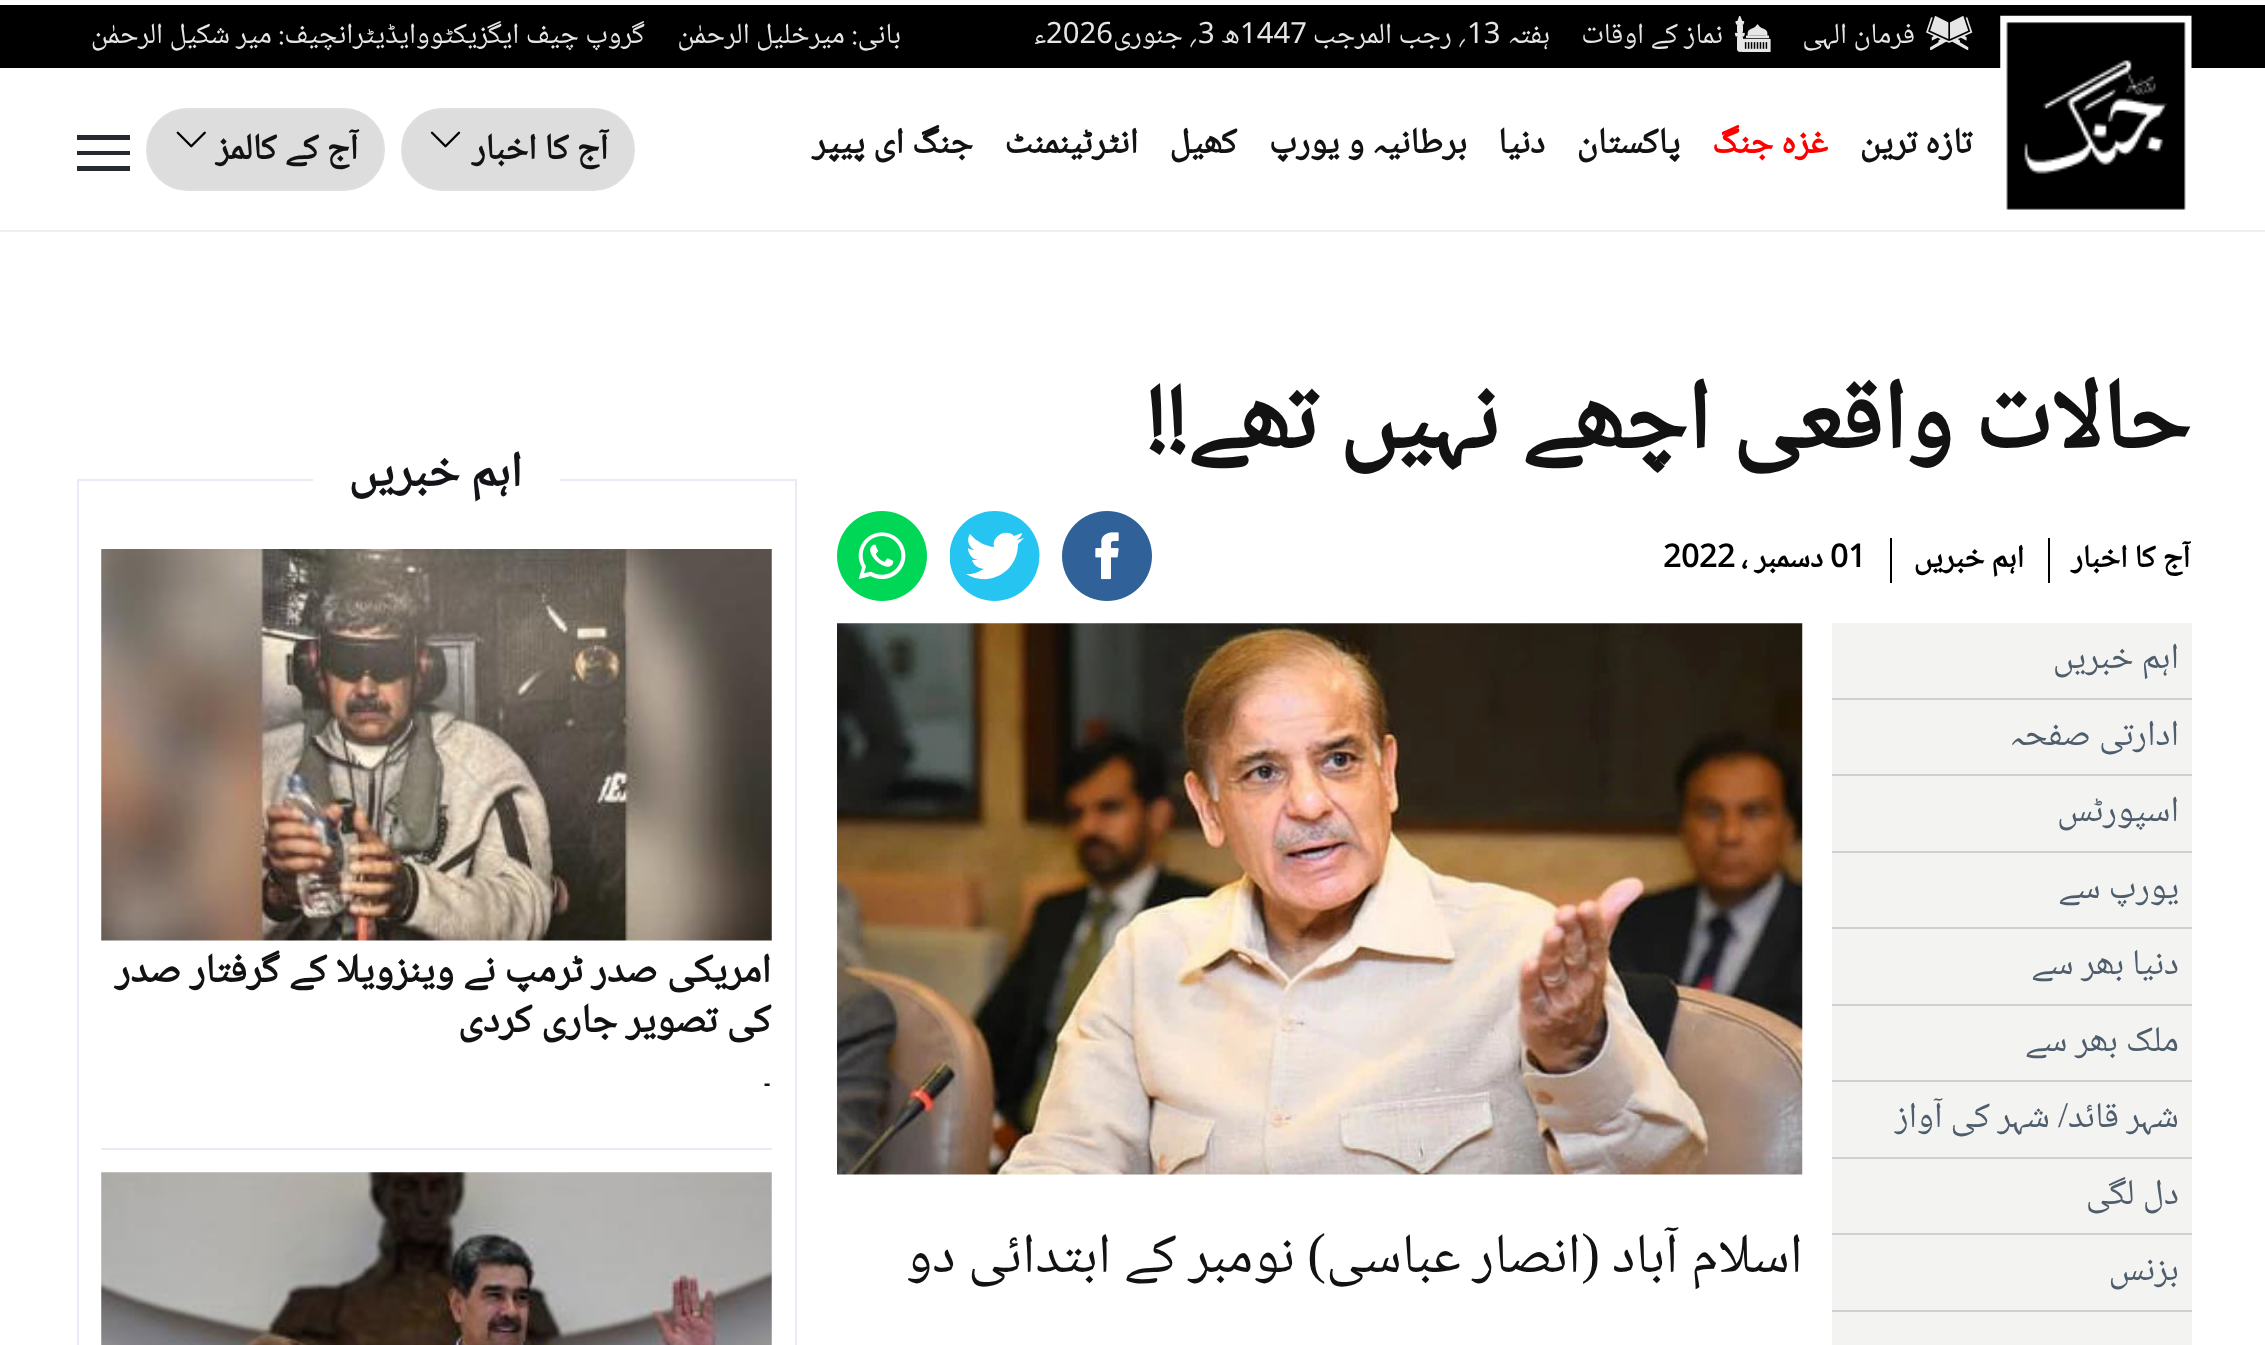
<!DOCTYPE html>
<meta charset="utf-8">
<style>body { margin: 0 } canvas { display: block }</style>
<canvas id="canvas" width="2265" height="1345"></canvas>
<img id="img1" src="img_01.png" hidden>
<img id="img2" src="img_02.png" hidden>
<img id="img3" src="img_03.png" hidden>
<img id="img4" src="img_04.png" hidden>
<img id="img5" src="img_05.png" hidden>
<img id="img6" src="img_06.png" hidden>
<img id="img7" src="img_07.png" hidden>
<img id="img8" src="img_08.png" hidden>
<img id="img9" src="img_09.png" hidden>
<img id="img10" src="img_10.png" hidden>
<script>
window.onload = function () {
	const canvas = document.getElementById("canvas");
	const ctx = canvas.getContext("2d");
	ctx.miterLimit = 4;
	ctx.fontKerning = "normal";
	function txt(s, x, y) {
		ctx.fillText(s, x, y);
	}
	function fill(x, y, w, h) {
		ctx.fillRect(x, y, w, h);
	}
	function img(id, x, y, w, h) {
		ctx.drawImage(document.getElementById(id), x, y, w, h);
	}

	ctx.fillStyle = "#FFFFFF";
	fill(0, 0, 2265, 1345);
	ctx.fillStyle = "#000000";
	fill(0, 5, 2265, 63);
	img("img1", 2000, 15, 192, 195);
	img("img2", 1926, 16, 47, 34);
	img("img3", 1735, 16, 36, 36);
	ctx.fillStyle = "#EFEFEF";
	fill(0, 230, 2265, 2);
	ctx.fillStyle = "#DDDDDD";
	ctx.beginPath();
	ctx.roundRect(402, 109, 232, 81, 40.5);
	ctx.fill();
	ctx.strokeStyle = "#DFDFDF";
	ctx.lineWidth = 2;
	ctx.stroke();
	img("img4", 430, 131, 31, 17);
	ctx.beginPath();
	ctx.roundRect(147, 109, 237, 81, 40.5);
	ctx.fill();
	ctx.stroke();
	img("img5", 176, 131, 30, 17);
	ctx.save();
	ctx.beginPath();
	ctx.rect(77, 135, 54, 36);
	ctx.clip();
	ctx.fillStyle = "#252A32";
	ctx.beginPath();
	ctx.moveTo(76, 135);
	ctx.lineTo(130, 135);
	ctx.lineTo(130, 140);
	ctx.lineTo(76, 140);
	ctx.closePath();
	ctx.moveTo(76, 151);
	ctx.lineTo(130, 151);
	ctx.lineTo(130, 155);
	ctx.lineTo(76, 155);
	ctx.closePath();
	ctx.moveTo(76, 166);
	ctx.lineTo(130, 166);
	ctx.lineTo(130, 171);
	ctx.lineTo(76, 171);
	ctx.closePath();
	ctx.fill("evenodd");
	ctx.restore();
	ctx.fillStyle = "#000000";
	fill(2048, 538, 2, 45);
	fill(1890, 538, 2, 45);
	img("img6", 1062, 511, 90, 90);
	ctx.save();
	ctx.beginPath();
	ctx.rect(950, 511, 90, 90);
	ctx.clip();
	ctx.fillStyle = "#26C4F1";
	ctx.beginPath();
	ctx.arc(994.5, 556, 45, 0, Math.PI * 2);
	ctx.fill();
	ctx.restore();
	ctx.fillStyle = "#FFFFFF";
	ctx.beginPath();
	ctx.moveTo(966, 574);
	ctx.bezierCurveTo(989, 588, 1018, 572, 1018, 544);
	ctx.lineTo(1024, 538);
	ctx.lineTo(1017, 540);
	ctx.bezierCurveTo(1017, 539, 1022, 537, 1022, 533);
	ctx.lineTo(1014, 536);
	ctx.bezierCurveTo(1007, 528, 991, 536, 994, 547);
	ctx.bezierCurveTo(994, 547, 980, 546, 970, 534);
	ctx.bezierCurveTo(970, 534, 964, 542, 974, 550);
	ctx.bezierCurveTo(974, 550, 971, 550, 968, 548);
	ctx.bezierCurveTo(968, 548, 968, 558, 978, 560);
	ctx.lineTo(972, 560);
	ctx.bezierCurveTo(972, 560, 974, 568, 984, 569);
	ctx.bezierCurveTo(983, 569, 976, 575, 966, 574);
	ctx.closePath();
	ctx.fill();
	img("img7", 837, 511, 90, 90);
	ctx.fillStyle = "#F3F3F2";
	fill(1832, 623, 360, 722);
	ctx.fillStyle = "#D0D0D0";
	fill(1832, 698, 360, 2);
	fill(1832, 774, 360, 2);
	fill(1832, 851, 360, 2);
	fill(1832, 927, 360, 2);
	fill(1832, 1004, 360, 2);
	fill(1832, 1080, 360, 2);
	fill(1832, 1157, 360, 2);
	fill(1832, 1233, 360, 2);
	fill(1832, 1310, 360, 2);
	img("img8", 837, 623, 966, 552);
	ctx.strokeStyle = "#EAEAF4";
	ctx.strokeRect(78, 480, 718, 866);
	ctx.fillStyle = "#FFFFFF";
	fill(313, 479, 247, 2);
	img("img9", 101, 549, 671, 392);
	ctx.fillStyle = "#EAEAF4";
	fill(101, 1148, 671, 2);
	img("img10", 101, 1172, 671, 173);
	ctx.direction = "rtl";
	ctx.font = "29.25px Noto Naskh Arabic";
	ctx.fillStyle = "#E6E6E6";
	txt("فرمان الہی", 1915, 43);
	txt("نماز کے اوقات", 1723, 43);
	txt("ہفتہ", 1550, 43);
	ctx.direction = "ltr";
	txt("13", 1467, 43);
	ctx.direction = "rtl";
	txt("؍ رجب المرجب", 1467, 43);
	ctx.direction = "ltr";
	txt("1447", 1240, 43);
	ctx.direction = "rtl";
	txt("ھ", 1240, 43);
	ctx.direction = "ltr";
	txt("3", 1198, 43);
	ctx.direction = "rtl";
	txt("؍ جنوری", 1198, 43);
	ctx.direction = "ltr";
	txt("2026", 1046, 43);
	ctx.direction = "rtl";
	txt("ء", 1046, 43);
	txt("بانی: میرخلیل الرحمٰن", 901, 43);
	txt("گروپ چیف ایگزیکٹووایڈیٹرانچیف: میر شکیل الرحمٰن", 645, 43);
	ctx.font = "bold 36px Noto Naskh Arabic";
	ctx.fillStyle = "#121212";
	txt("تازہ ترین", 1972, 153);
	ctx.fillStyle = "#FF0000";
	txt("غزہ جنگ", 1828, 153);
	ctx.fillStyle = "#121212";
	txt("پاکستان", 1680, 153);
	txt("دنیا", 1545, 153);
	txt("برطانیہ و یورپ", 1467, 153);
	txt("کھیل", 1237, 153);
	txt("انٹرٹینمنٹ", 1138, 153);
	txt("جنگ ای پیپر", 973, 153);
	txt("آج کا اخبار", 608, 159);
	txt("آج کے کالمز", 358, 159);
	ctx.font = "bold 99px Noto Naskh Arabic";
	txt("حالات واقعی اچھے نہیں تھے!!", 2190, 448);
	ctx.font = "bold 31.5px Noto Naskh Arabic";
	ctx.fillStyle = "#000000";
	txt("آج کا اخبار", 2190, 567);
	txt("اہم خبریں", 2024, 567);
	ctx.direction = "ltr";
	txt("01", 1830, 567);
	ctx.direction = "rtl";
	txt("دسمبر ،", 1823, 567);
	ctx.direction = "ltr";
	txt("2022", 1663, 567);
	ctx.direction = "rtl";
	ctx.font = "36px Noto Naskh Arabic";
	ctx.fillStyle = "#4E5D6B";
	txt("اہم خبریں", 2179, 668);
	txt("ادارتی صفحہ", 2179, 745);
	txt("اسپورٹس", 2179, 821);
	txt("یورپ سے", 2179, 898);
	txt("دنیا بھر سے", 2179, 974);
	txt("ملک بھر سے", 2179, 1051);
	txt("شہر قائد", 2179, 1127);
	ctx.font = "36px Liberation Serif";
	txt("/", 2068, 1127);
	ctx.font = "36px Noto Naskh Arabic";
	txt("شہر کی آواز", 2050, 1127);
	txt("دل لگی", 2179, 1204);
	txt("بزنس", 2179, 1280);
	ctx.font = "56.25px Noto Naskh Arabic";
	ctx.fillStyle = "#121212";
	txt("اسلام آباد", 1803, 1272);
	ctx.font = "56.25px Liberation Serif";
	txt("(", 1600, 1272);
	ctx.font = "56.25px Noto Naskh Arabic";
	txt("انصار عباسی", 1581, 1272);
	ctx.font = "56.25px Liberation Serif";
	txt(")", 1326, 1272);
	ctx.font = "56.25px Noto Naskh Arabic";
	txt("نومبر کے ابتدائی دو", 1295, 1272);
	ctx.font = "bold 49.5px Noto Naskh Arabic";
	ctx.fillStyle = "#131418";
	txt("اہم خبریں", 522, 486);
	ctx.font = "bold 40.5px Noto Naskh Arabic";
	ctx.fillStyle = "#121212";
	txt("امریکی صدر ٹرمپ نے وینزویلا کے گرفتار صدر", 771, 982);
	txt("کی تصویر جاری کردی", 771, 1032);
	ctx.font = "31.5px Noto Naskh Arabic";
	txt("۔", 771, 1086);
};
</script>
